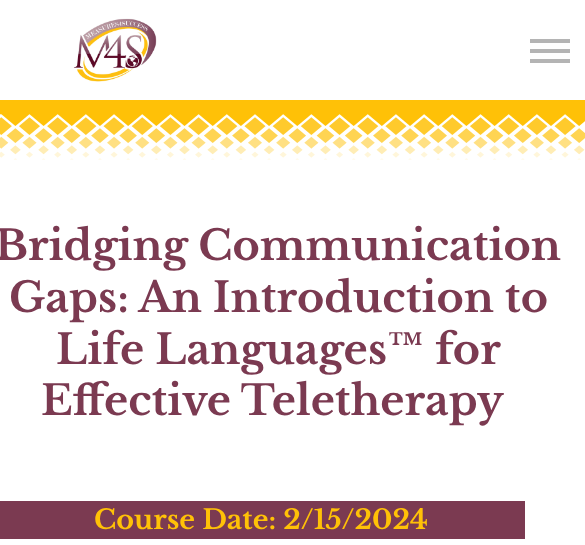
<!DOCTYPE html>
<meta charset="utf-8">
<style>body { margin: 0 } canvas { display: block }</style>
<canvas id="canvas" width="585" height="545"></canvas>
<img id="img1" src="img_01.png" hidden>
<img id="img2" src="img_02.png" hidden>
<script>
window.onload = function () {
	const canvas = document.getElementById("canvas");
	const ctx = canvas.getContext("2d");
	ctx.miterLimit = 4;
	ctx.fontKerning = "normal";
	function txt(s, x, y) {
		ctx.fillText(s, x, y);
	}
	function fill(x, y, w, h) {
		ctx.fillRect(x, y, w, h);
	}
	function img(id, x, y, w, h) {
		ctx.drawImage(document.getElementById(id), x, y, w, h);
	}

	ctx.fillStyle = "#FFFFFF";
	fill(0, 0, 585, 545);
	img("img1", 73, 18, 84, 64);
	ctx.fillStyle = "#B4B4B4";
	fill(530, 59, 40, 4);
	fill(530, 39, 40, 4);
	fill(530, 49, 40, 4);
	img("img2", 0, 100, 585, 60);
	ctx.fillStyle = "#7B3A51";
	fill(0, 501, 525, 38);
	ctx.font = "bold 41.4px Libre Baskerville";
	txt("Bridging Communication", -5, 260);
	txt("Gaps: An Introduction to", 9, 312);
	txt("Life Languages™ for", 56, 364);
	txt("Effective Teletherapy", 41, 415);
	ctx.font = "bold 27px Libre Baskerville";
	ctx.fillStyle = "#FFC107";
	txt("Course Date: 2/15/2024", 94, 529);
};
</script>
